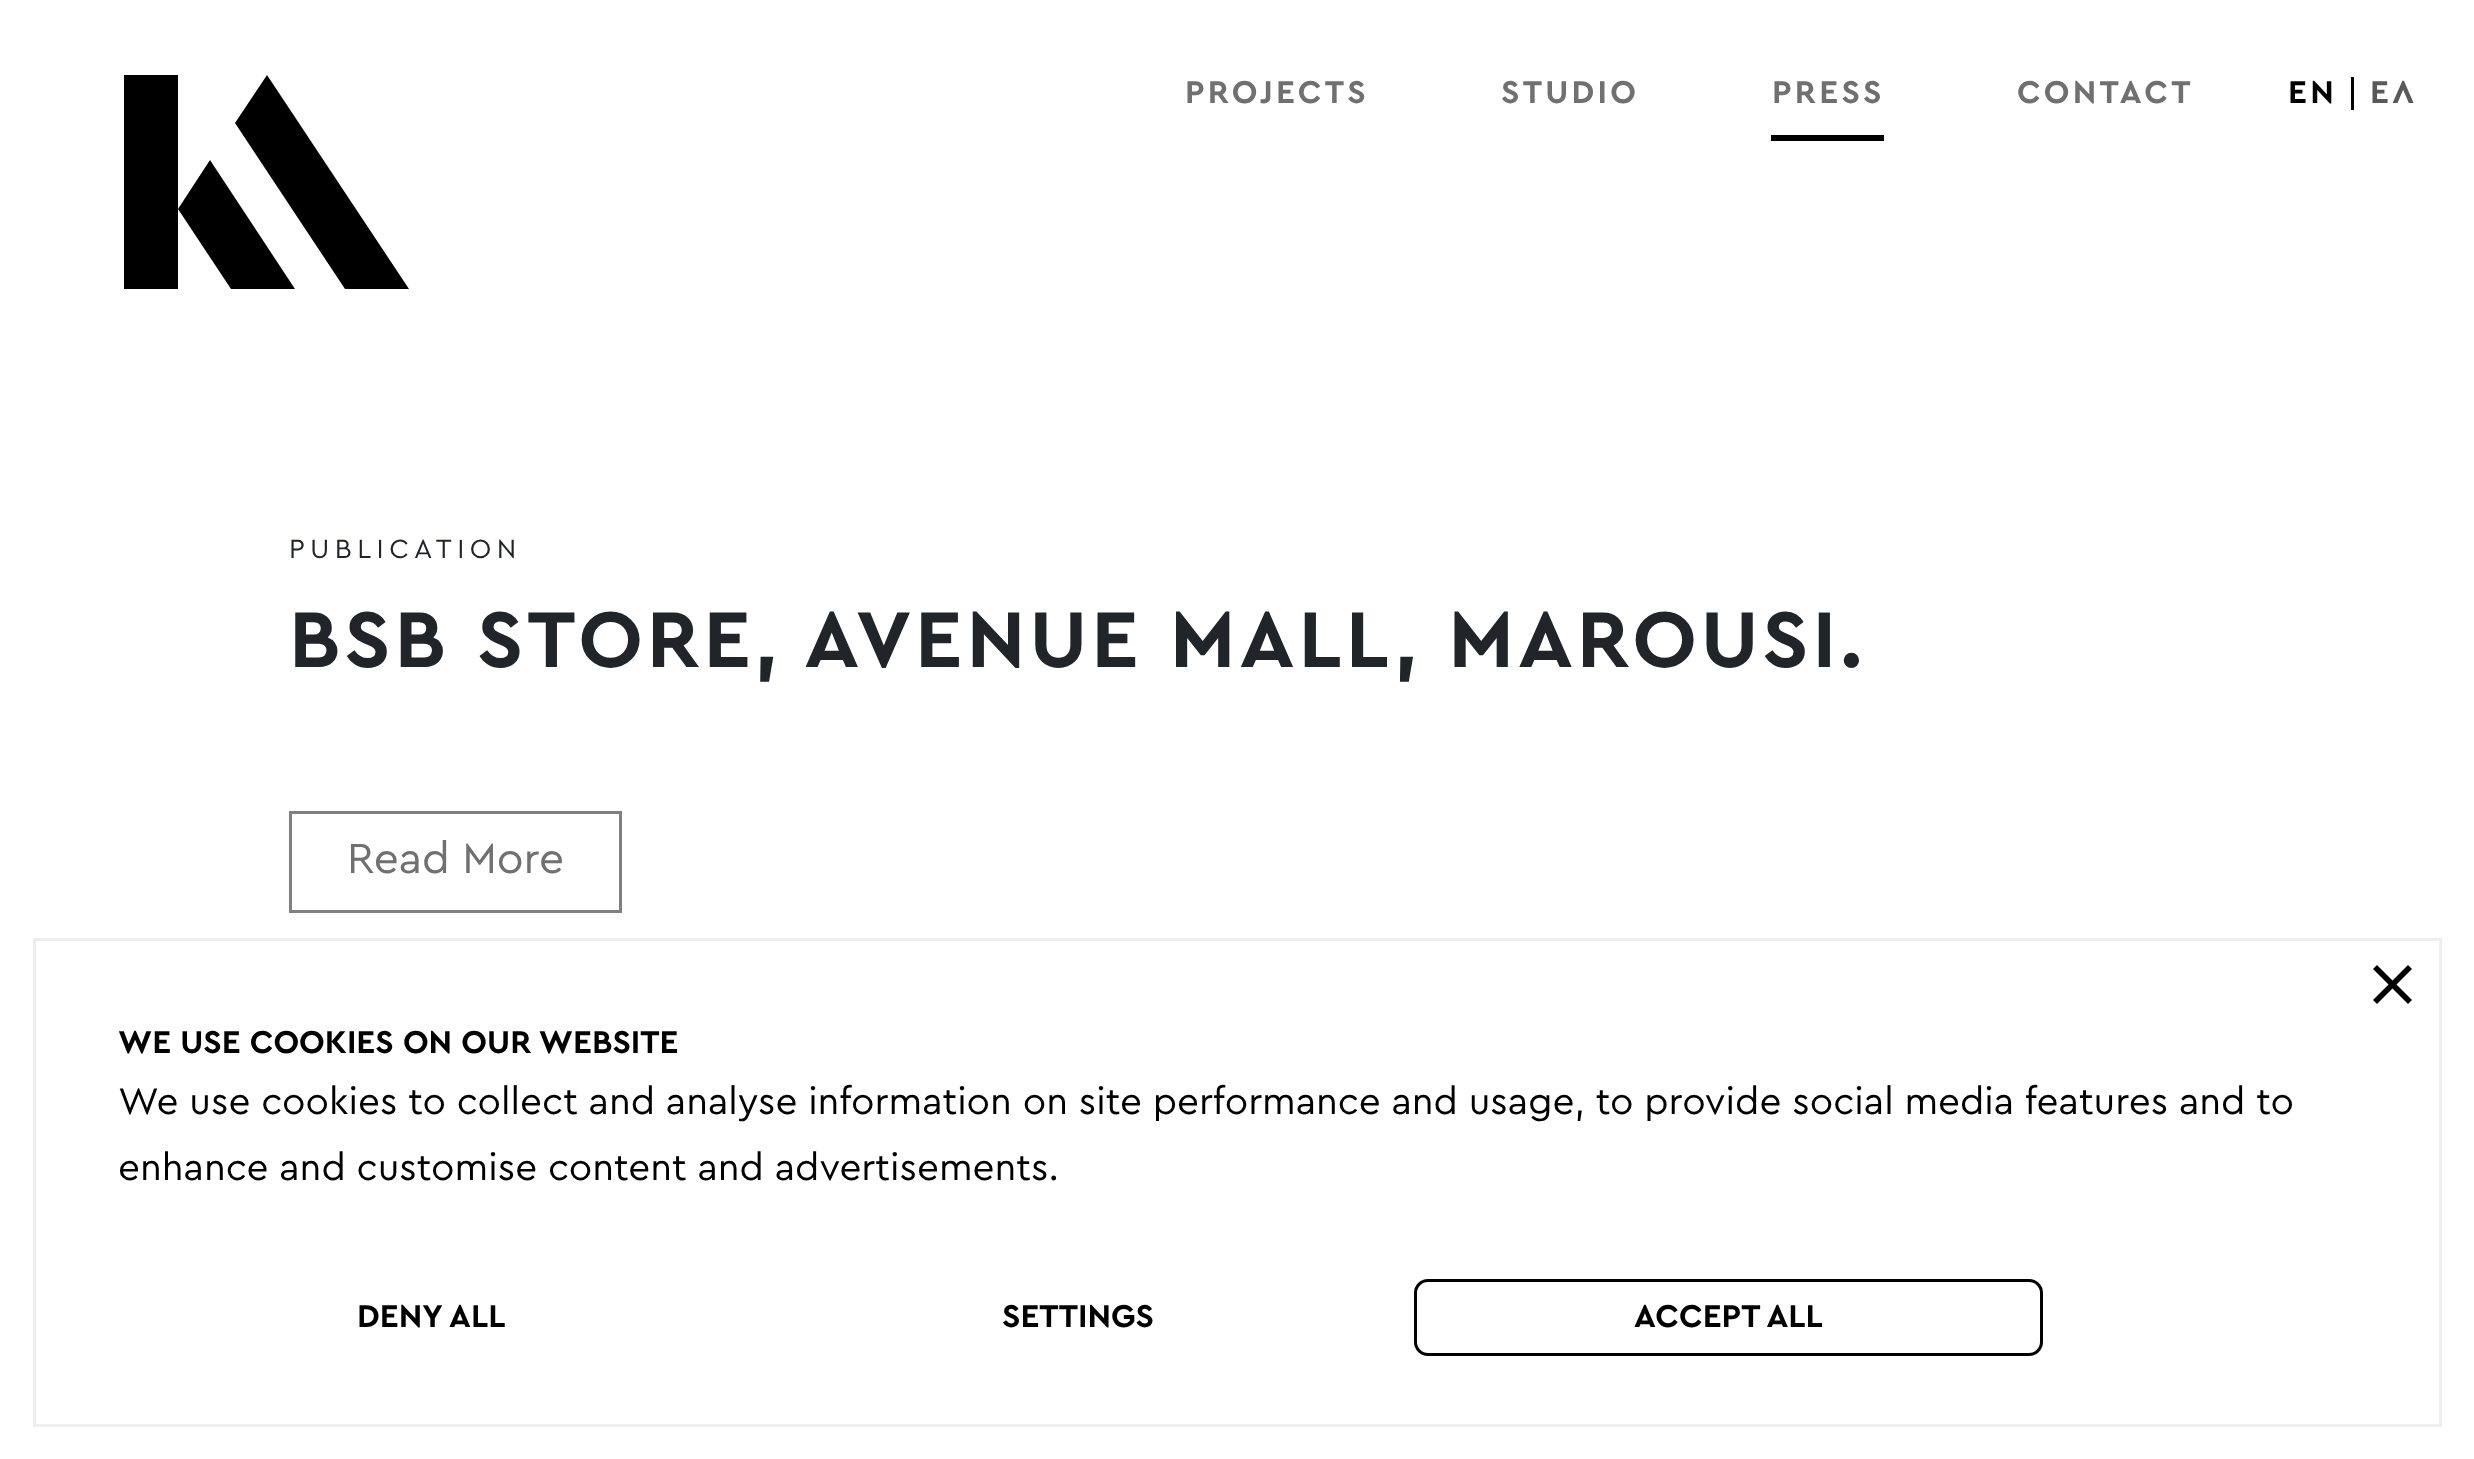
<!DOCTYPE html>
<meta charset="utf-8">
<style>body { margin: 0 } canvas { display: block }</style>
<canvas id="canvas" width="2474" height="1459"></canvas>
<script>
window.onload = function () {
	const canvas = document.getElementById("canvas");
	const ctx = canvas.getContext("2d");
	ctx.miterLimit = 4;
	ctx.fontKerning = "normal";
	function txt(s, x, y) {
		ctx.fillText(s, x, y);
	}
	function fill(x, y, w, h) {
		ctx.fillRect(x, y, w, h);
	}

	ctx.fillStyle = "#FFFFFF";
	fill(0, 0, 2474, 1459);
	ctx.fillStyle = "#000000";
	ctx.beginPath();
	ctx.moveTo(124, 75);
	ctx.lineTo(178, 75);
	ctx.lineTo(178, 289);
	ctx.lineTo(124, 289);
	ctx.closePath();
	ctx.moveTo(178, 209);
	ctx.lineTo(231, 289);
	ctx.lineTo(295, 289);
	ctx.lineTo(210, 160);
	ctx.closePath();
	ctx.moveTo(409, 289);
	ctx.lineTo(267, 75);
	ctx.lineTo(235, 123);
	ctx.lineTo(345, 289);
	ctx.closePath();
	ctx.fill();
	fill(1771, 135, 113, 6);
	fill(2351, 77, 3, 33);
	ctx.strokeStyle = "#808080";
	ctx.lineWidth = 3;
	ctx.strokeRect(290.5, 812.5, 330, 99);
	ctx.strokeStyle = "#EEEEEE";
	ctx.strokeRect(34.5, 939.5, 2406, 486);
	ctx.beginPath();
	ctx.moveTo(2373, 1000);
	ctx.lineTo(2408, 965);
	ctx.lineTo(2412, 969);
	ctx.lineTo(2377, 1004);
	ctx.closePath();
	ctx.fill();
	ctx.beginPath();
	ctx.moveTo(2377, 965);
	ctx.lineTo(2412, 1000);
	ctx.lineTo(2408, 1004);
	ctx.lineTo(2373, 969);
	ctx.closePath();
	ctx.fill();
	ctx.beginPath();
	ctx.roundRect(1415.5, 1280.5, 626, 74, 12.5);
	ctx.strokeStyle = "#000000";
	ctx.stroke();
	ctx.letterSpacing = "3.25px";
	ctx.font = "bold 33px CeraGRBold";
	ctx.fillStyle = "#707070";
	txt("PROJECTS", 1185, 103);
	txt("STUDIO", 1501, 103);
	txt("PRESS", 1772, 103);
	txt("CONTACT", 2017, 103);
	ctx.fillStyle = "#000000";
	txt("EN", 2288, 103);
	ctx.fillStyle = "#595959";
	txt("ΕΛ", 2370, 103);
	ctx.letterSpacing = "5.5px";
	ctx.font = "27.5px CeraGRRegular";
	ctx.fillStyle = "#212529";
	txt("PUBLICATION", 289, 558);
	ctx.letterSpacing = "4.1px";
	ctx.font = "bold 82.5px CeraGRBold";
	txt("BSB STORE, AVENUE MALL, MAROUSI.", 289, 667);
	ctx.letterSpacing = "0px";
	ctx.font = "44px CeraGRRegular";
	ctx.fillStyle = "#707070";
	txt("Read More", 347, 873);
	ctx.font = "bold 33px CeraGRBold";
	ctx.fillStyle = "#000000";
	txt("WE USE COOKIES ON OUR WEBSITE", 118, 1053);
	ctx.font = "38.5px CeraGRRegular";
	txt("We use cookies to collect and analyse information on site performance and usage, to provide social media features and to", 118, 1114);
	txt("enhance and customise content and advertisements.", 118, 1180);
	ctx.font = "bold 33px CeraGRBold";
	txt("DENY ALL", 357, 1327);
	txt("SETTINGS", 1002, 1327);
	txt("ACCEPT ALL", 1634, 1327);
};
</script>
